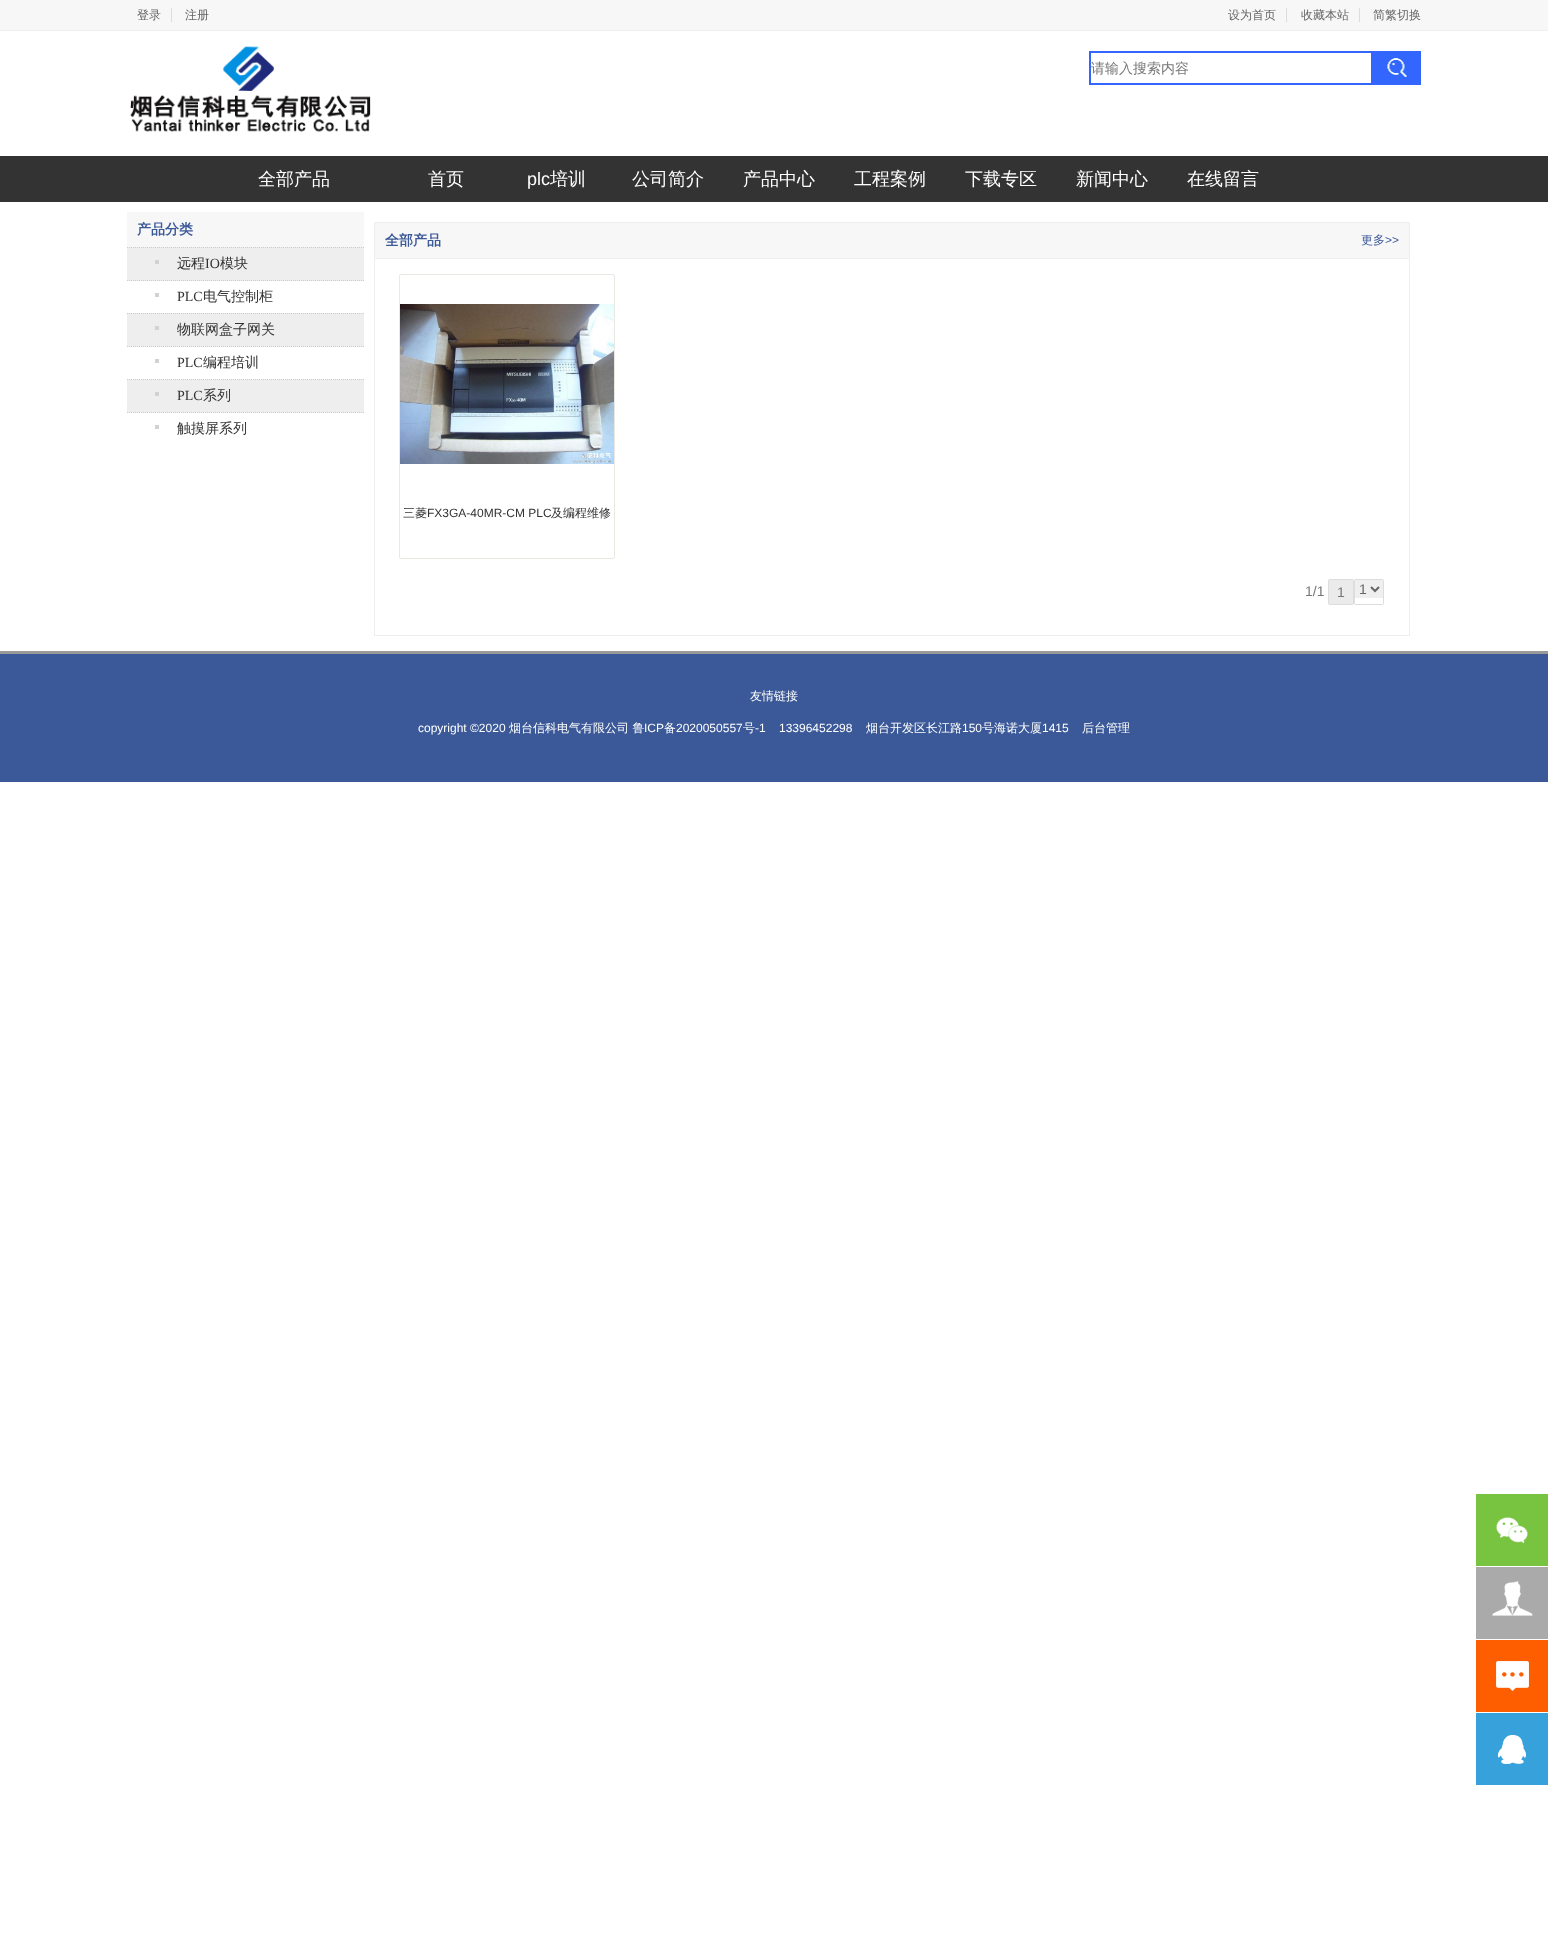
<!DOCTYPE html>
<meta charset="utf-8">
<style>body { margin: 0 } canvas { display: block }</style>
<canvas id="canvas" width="1548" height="1941"></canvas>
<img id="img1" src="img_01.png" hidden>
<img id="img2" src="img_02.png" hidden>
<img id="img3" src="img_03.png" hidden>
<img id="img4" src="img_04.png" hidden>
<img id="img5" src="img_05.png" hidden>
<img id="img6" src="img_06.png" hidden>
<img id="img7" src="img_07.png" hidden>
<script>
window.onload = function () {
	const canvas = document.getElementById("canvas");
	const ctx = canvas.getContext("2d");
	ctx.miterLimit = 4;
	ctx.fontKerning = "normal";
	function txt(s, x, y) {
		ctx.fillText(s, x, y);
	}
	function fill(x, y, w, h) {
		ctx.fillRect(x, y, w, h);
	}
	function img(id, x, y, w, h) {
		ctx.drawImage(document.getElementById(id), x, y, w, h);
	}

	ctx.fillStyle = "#FFFFFF";
	fill(0, 0, 1548, 1941);
	ctx.fillStyle = "#F7F7F7";
	fill(0, 0, 1548, 30);
	ctx.fillStyle = "#EEEEEE";
	fill(0, 30, 1548, 1);
	ctx.fillStyle = "#DDDDDD";
	fill(171, 8, 1, 14);
	fill(1286, 8, 1, 14);
	fill(1359, 8, 1, 14);
	img("img1", 130, 46, 241, 86);
	ctx.strokeStyle = "#3366FF";
	ctx.lineWidth = 2;
	ctx.strokeRect(1090, 52, 282, 32);
	img("img2", 1373, 51, 48, 34);
	ctx.fillStyle = "#333333";
	fill(0, 156, 1548, 46);
	ctx.fillStyle = "#F7F7F7";
	fill(127, 212, 237, 35);
	ctx.fillStyle = "#EEEEEE";
	fill(127, 247, 237, 34);
	ctx.beginPath();
	ctx.moveTo(127, 247.5);
	ctx.lineTo(364, 247.5);
	ctx.strokeStyle = "#CCCCCC";
	ctx.lineWidth = 1;
	ctx.setLineDash([1, 1]);
	ctx.stroke();
	ctx.beginPath();
	ctx.moveTo(127, 280.5);
	ctx.lineTo(364, 280.5);
	ctx.stroke();
	ctx.fillStyle = "#D2D2D2";
	fill(155, 260, 4, 4);
	fill(155, 293, 4, 4);
	ctx.fillStyle = "#EEEEEE";
	fill(127, 313, 237, 34);
	ctx.beginPath();
	ctx.moveTo(127, 313.5);
	ctx.lineTo(364, 313.5);
	ctx.stroke();
	ctx.beginPath();
	ctx.moveTo(127, 346.5);
	ctx.lineTo(364, 346.5);
	ctx.stroke();
	ctx.fillStyle = "#D2D2D2";
	fill(155, 326, 4, 4);
	fill(155, 359, 4, 4);
	ctx.fillStyle = "#EEEEEE";
	fill(127, 379, 237, 34);
	ctx.beginPath();
	ctx.moveTo(127, 379.5);
	ctx.lineTo(364, 379.5);
	ctx.stroke();
	ctx.beginPath();
	ctx.moveTo(127, 412.5);
	ctx.lineTo(364, 412.5);
	ctx.stroke();
	ctx.fillStyle = "#D2D2D2";
	fill(155, 392, 4, 4);
	fill(155, 425, 4, 4);
	ctx.strokeStyle = "#EEEEEE";
	ctx.setLineDash([]);
	ctx.strokeRect(374.5, 222.5, 1035, 413);
	ctx.fillStyle = "#F7F7F7";
	fill(375, 223, 1034, 35);
	ctx.fillStyle = "#EEEEEE";
	fill(375, 258, 1034, 1);
	ctx.beginPath();
	ctx.roundRect(399.5, 274.5, 215, 284, 1.5);
	ctx.strokeStyle = "#EBE8E3";
	ctx.stroke();
	img("img3", 400, 304, 214, 160);
	ctx.fillStyle = "#EBEBEB";
	ctx.beginPath();
	ctx.roundRect(1328.5, 579.5, 25, 25, 1.5);
	ctx.fill();
	ctx.strokeStyle = "#DDDDDD";
	ctx.stroke();
	ctx.beginPath();
	ctx.roundRect(1354.5, 579.5, 29, 25, 1.5);
	ctx.stroke();
	ctx.fillStyle = "#FFFFFF";
	fill(1355, 603, 28, 1);
	ctx.fillStyle = "#EFEFEF";
	fill(1355, 580, 28, 18);
	ctx.beginPath();
	ctx.moveTo(1371, 587);
	ctx.lineTo(1375, 591);
	ctx.lineTo(1379, 587);
	ctx.strokeStyle = "#666666";
	ctx.lineWidth = 2;
	ctx.stroke();
	ctx.fillStyle = "#3B5998";
	fill(0, 654, 1548, 128);
	ctx.fillStyle = "#999999";
	fill(0, 651, 1548, 3);
	ctx.fillStyle = "#78C340";
	fill(1476, 1494, 72, 72);
	img("img4", 1496, 1517, 32, 26);
	ctx.fillStyle = "#AAAAAA";
	fill(1476, 1567, 72, 72);
	img("img5", 1492, 1581, 41, 35);
	ctx.fillStyle = "#FE5E00";
	fill(1476, 1640, 72, 72);
	img("img6", 1496, 1661, 33, 30);
	ctx.fillStyle = "#36A1DB";
	fill(1476, 1713, 72, 72);
	img("img7", 1498, 1735, 28, 29);
	ctx.font = "500 12px WenQuanYi Zen Hei";
	ctx.fillStyle = "#666666";
	txt("登录", 137, 19);
	txt("注册", 185, 19);
	txt("设为首页", 1228, 19);
	txt("收藏本站", 1301, 19);
	txt("简繁切换", 1373, 19);
	ctx.font = "500 14px WenQuanYi Zen Hei";
	ctx.fillStyle = "#777777";
	txt("请输入搜索内容", 1091, 73);
	ctx.font = "500 18px WenQuanYi Zen Hei";
	ctx.fillStyle = "#FFFFFF";
	txt("全部产品", 258, 185);
	txt("首页", 428, 185);
	ctx.font = "18px Liberation Sans";
	txt("plc", 527, 185);
	ctx.font = "500 18px WenQuanYi Zen Hei";
	txt("培训", 550, 185);
	txt("公司简介", 632, 185);
	txt("产品中心", 743, 185);
	txt("工程案例", 854, 185);
	txt("下载专区", 965, 185);
	txt("新闻中心", 1076, 185);
	txt("在线留言", 1187, 185);
	ctx.font = "bold 14px WenQuanYi Zen Hei";
	ctx.fillStyle = "#3B5998";
	txt("产品分类", 137, 234);
	ctx.font = "500 14px WenQuanYi Zen Hei";
	ctx.fillStyle = "#333333";
	txt("远程", 177, 268);
	ctx.font = "14px Liberation Serif";
	txt("IO", 205, 268);
	ctx.font = "500 14px WenQuanYi Zen Hei";
	txt("模块", 220, 268);
	ctx.font = "14px Liberation Serif";
	txt("PLC", 177, 301);
	ctx.font = "500 14px WenQuanYi Zen Hei";
	txt("电气控制柜", 203, 301);
	txt("物联网盒子网关", 177, 334);
	ctx.font = "14px Liberation Serif";
	txt("PLC", 177, 367);
	ctx.font = "500 14px WenQuanYi Zen Hei";
	txt("编程培训", 203, 367);
	ctx.font = "14px Liberation Serif";
	txt("PLC", 177, 400);
	ctx.font = "500 14px WenQuanYi Zen Hei";
	txt("系列", 203, 400);
	txt("触摸屏系列", 177, 433);
	ctx.font = "bold 14px WenQuanYi Zen Hei";
	ctx.fillStyle = "#3B5998";
	txt("全部产品", 385, 245);
	ctx.font = "500 12px WenQuanYi Zen Hei";
	txt("更多", 1361, 244);
	ctx.font = "12px Liberation Sans";
	txt(">>", 1385, 244);
	ctx.font = "500 12px WenQuanYi Zen Hei";
	ctx.fillStyle = "#333333";
	txt("三菱", 403, 517);
	ctx.font = "12px Liberation Sans";
	txt("FX3GA-40MR-CM PLC", 427, 517);
	ctx.font = "500 12px WenQuanYi Zen Hei";
	txt("及编程维修", 551, 517);
	ctx.font = "14px Liberation Sans";
	ctx.fillStyle = "#777777";
	txt("1/1", 1305, 596);
	txt("1", 1337, 597);
	ctx.fillStyle = "#666666";
	txt("1", 1359, 594);
	ctx.font = "500 12px WenQuanYi Zen Hei";
	ctx.fillStyle = "#FFFFFF";
	txt("友情链接", 750, 700);
	ctx.font = "12px Liberation Sans";
	txt("copyright ©2020", 418, 732);
	ctx.font = "500 12px WenQuanYi Zen Hei";
	txt("烟台信科电气有限公司 鲁", 509, 732);
	ctx.font = "12px Liberation Sans";
	txt("ICP", 644, 732);
	ctx.font = "500 12px WenQuanYi Zen Hei";
	txt("备", 664, 732);
	ctx.font = "12px Liberation Sans";
	txt("2020050557", 676, 732);
	ctx.font = "500 12px WenQuanYi Zen Hei";
	txt("号", 743, 732);
	ctx.font = "12px Liberation Sans";
	txt("-1", 755, 732);
	txt("13396452298", 779, 732);
	ctx.font = "500 12px WenQuanYi Zen Hei";
	txt("烟台开发区长江路", 866, 732);
	ctx.font = "12px Liberation Sans";
	txt("150", 962, 732);
	ctx.font = "500 12px WenQuanYi Zen Hei";
	txt("号海诺大厦", 982, 732);
	ctx.font = "12px Liberation Sans";
	txt("1415", 1042, 732);
	ctx.font = "500 12px WenQuanYi Zen Hei";
	txt("后台管理", 1082, 732);
};
</script>
